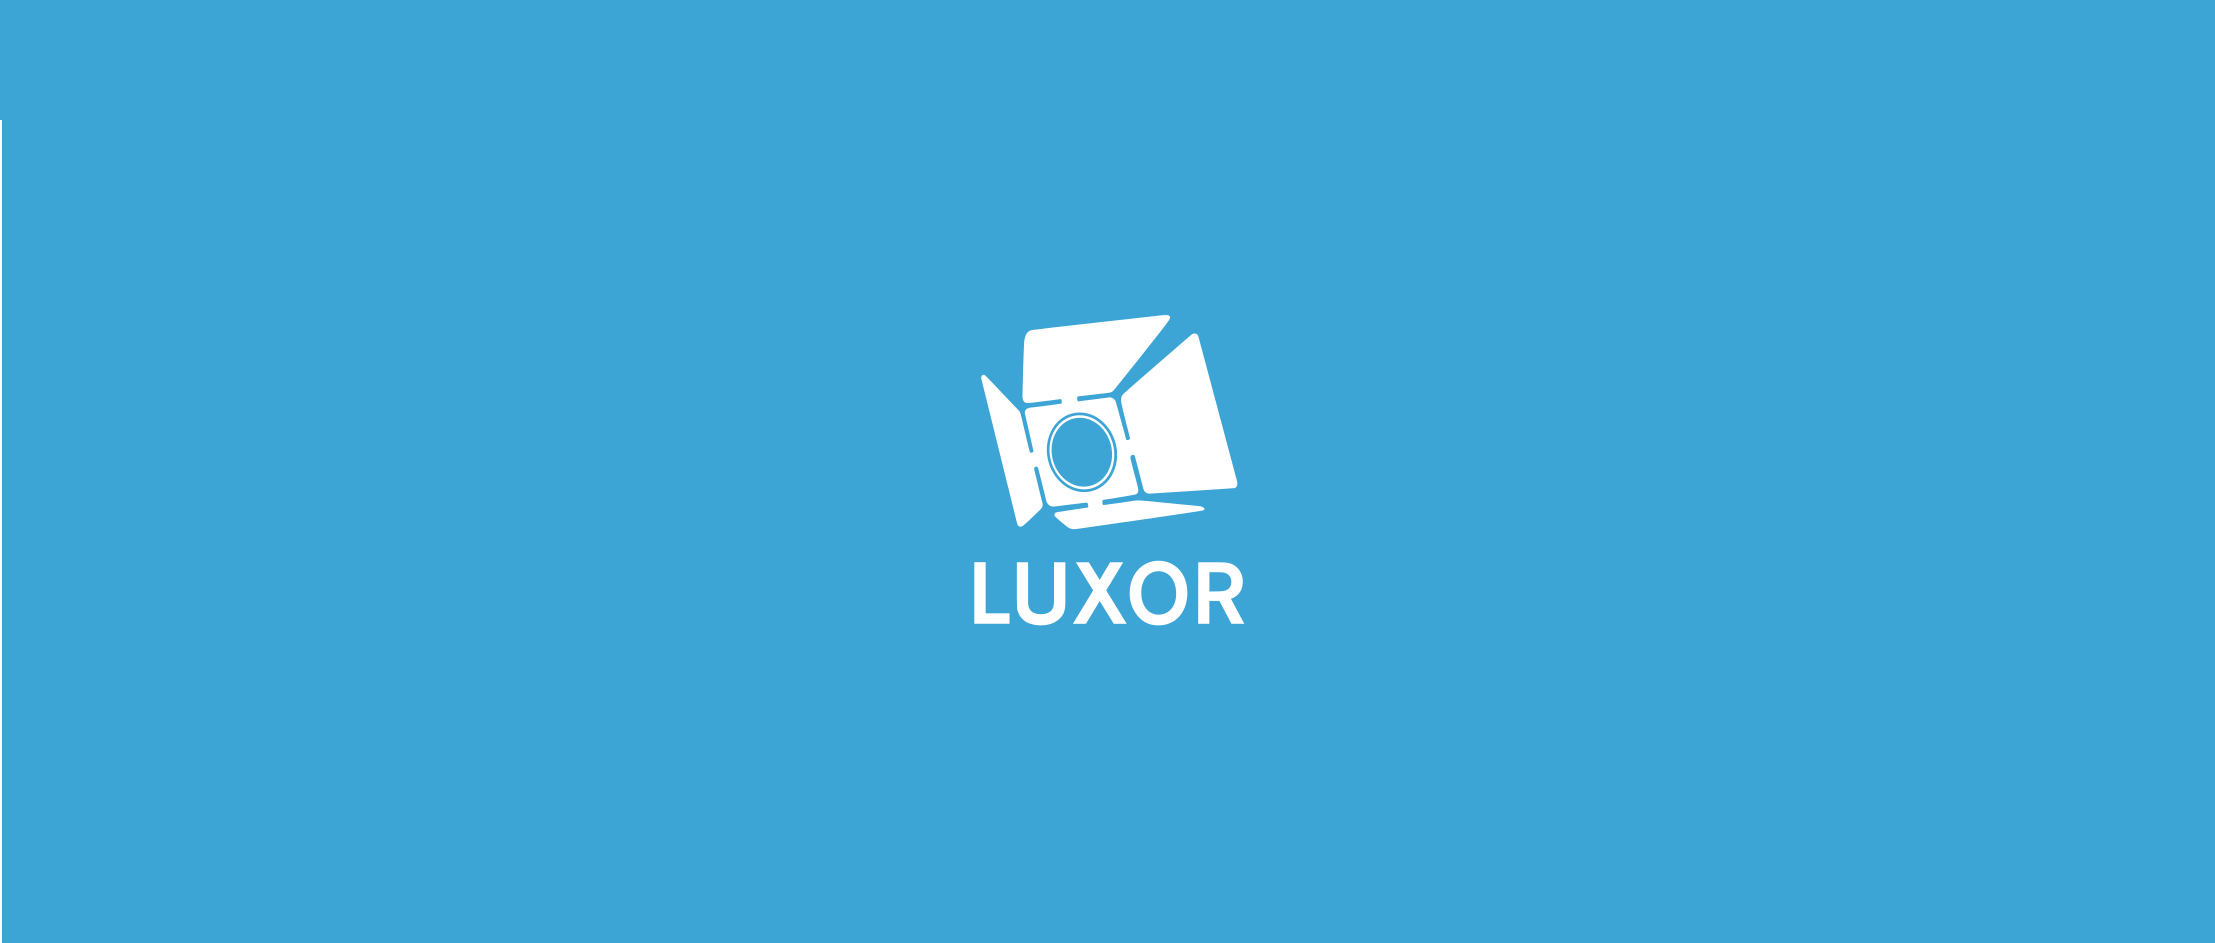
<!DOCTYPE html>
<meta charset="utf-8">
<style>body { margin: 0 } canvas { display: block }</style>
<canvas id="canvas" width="2215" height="943"></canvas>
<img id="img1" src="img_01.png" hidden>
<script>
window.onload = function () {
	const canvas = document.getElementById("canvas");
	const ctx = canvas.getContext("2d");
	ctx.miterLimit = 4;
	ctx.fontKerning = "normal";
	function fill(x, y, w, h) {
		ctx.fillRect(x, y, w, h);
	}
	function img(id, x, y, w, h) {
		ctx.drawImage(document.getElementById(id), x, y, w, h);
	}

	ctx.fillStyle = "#FFFFFF";
	fill(0, 0, 2215, 943);
	ctx.fillStyle = "#3DA5D6";
	fill(0, 0, 2, 120);
	fill(2, 0, 2213, 943);
	img("img1", 974, 315, 271, 311);
};
</script>
